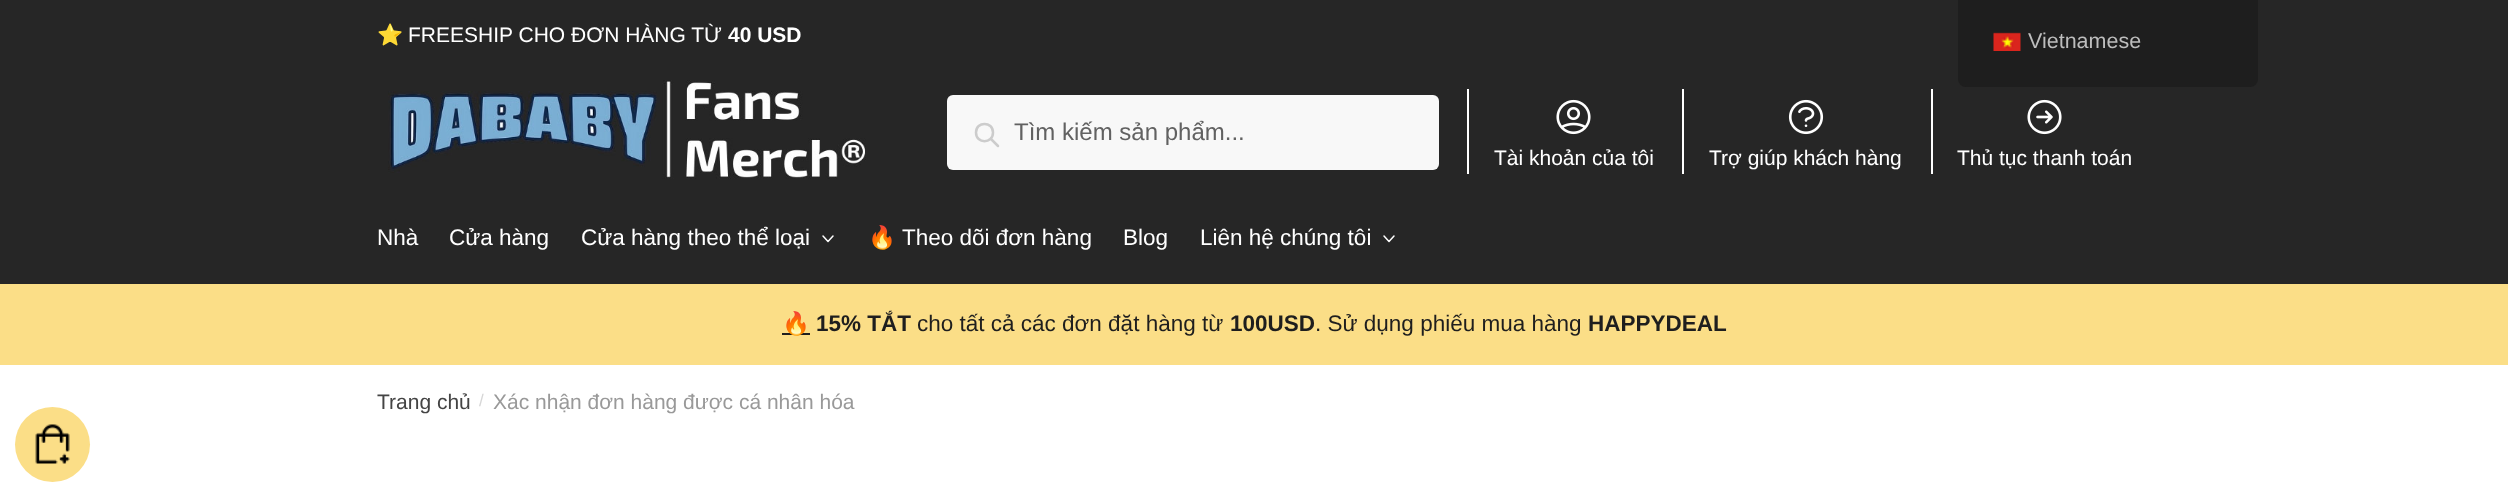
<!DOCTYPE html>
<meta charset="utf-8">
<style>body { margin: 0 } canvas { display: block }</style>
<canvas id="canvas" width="2508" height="496"></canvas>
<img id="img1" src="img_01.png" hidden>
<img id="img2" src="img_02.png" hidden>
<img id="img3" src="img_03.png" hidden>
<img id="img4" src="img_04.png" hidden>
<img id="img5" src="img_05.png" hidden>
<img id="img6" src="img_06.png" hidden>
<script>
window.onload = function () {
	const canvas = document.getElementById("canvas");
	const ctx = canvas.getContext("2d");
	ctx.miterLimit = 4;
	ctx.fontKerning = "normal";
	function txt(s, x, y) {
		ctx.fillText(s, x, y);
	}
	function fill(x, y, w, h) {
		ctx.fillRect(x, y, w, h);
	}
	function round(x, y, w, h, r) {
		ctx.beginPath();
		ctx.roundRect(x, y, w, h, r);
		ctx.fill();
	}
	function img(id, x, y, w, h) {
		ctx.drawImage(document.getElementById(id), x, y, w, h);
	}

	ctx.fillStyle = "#FFFFFF";
	fill(0, 0, 2508, 496);
	ctx.fillStyle = "#262626";
	fill(0, 0, 2508, 72);
	fill(0, 72, 2508, 212);
	img("img1", 388, 80, 478, 99);
	ctx.fillStyle = "#F8F8F8";
	round(947, 95, 492, 75, 6);
	ctx.beginPath();
	ctx.moveTo(998, 146);
	ctx.lineTo(991, 139);
	ctx.moveTo(993, 132.5);
	ctx.bezierCurveTo(993, 144, 976, 144, 976, 132.5);
	ctx.bezierCurveTo(976, 121, 993, 121, 993, 132.5);
	ctx.closePath();
	ctx.strokeStyle = "#CCCCCC";
	ctx.lineWidth = 2.5;
	ctx.lineCap = "round";
	ctx.lineJoin = "round";
	ctx.stroke();
	ctx.fillStyle = "#FFFFFF";
	fill(1467, 89, 2, 85);
	img("img2", 1556, 99, 35, 36);
	fill(1682, 89, 2, 85);
	img("img3", 1788, 99, 36, 36);
	fill(1931, 89, 2, 85);
	img("img4", 2027, 99, 35, 36);
	ctx.beginPath();
	ctx.moveTo(833, 236);
	ctx.lineTo(828, 241.5);
	ctx.lineTo(823, 236);
	ctx.strokeStyle = "#FFFFFF";
	ctx.lineWidth = 1.5;
	ctx.stroke();
	ctx.beginPath();
	ctx.moveTo(1394, 236);
	ctx.lineTo(1389, 241.5);
	ctx.lineTo(1384, 236);
	ctx.stroke();
	ctx.fillStyle = "#FBDE87";
	fill(0, 284, 2508, 81);
	ctx.fillStyle = "#1E1E1E";
	fill(782, 333, 28, 2);
	ctx.beginPath();
	ctx.roundRect(1958, 0, 300, 87, [0, 0, 8, 8]);
	ctx.fill();
	img("img5", 1993, 32, 28, 19);
	ctx.fillStyle = "#FBDE87";
	ctx.beginPath();
	ctx.arc(52.5, 444.5, 37.5, 0, Math.PI * 2);
	ctx.fill();
	img("img6", 35, 424, 35, 40);
	ctx.font = "21px Noto Color Emoji";
	ctx.fillStyle = "#FFFFFF";
	txt("⭐", 377, 42);
	ctx.font = "21px Liberation Sans";
	txt("FREESHIP CHO ĐƠN HÀNG TỪ", 408, 42);
	ctx.font = "bold 21px Liberation Sans";
	txt("40 USD", 728, 42);
	ctx.font = "24px Liberation Sans";
	ctx.fillStyle = "#616161";
	txt("Tìm kiếm sản phẩm...", 1014, 140);
	ctx.font = "21px Liberation Sans";
	ctx.fillStyle = "#FFFFFF";
	txt("Tài khoản của tôi", 1494, 165);
	txt("Trợ giúp khách hàng", 1709, 165);
	txt("Thủ tục thanh toán", 1957, 165);
	ctx.font = "22.5px Liberation Sans";
	txt("Nhà", 377, 245);
	txt("Cửa hàng", 449, 245);
	txt("Cửa hàng theo thể loại", 581, 245);
	ctx.font = "22.5px Noto Color Emoji";
	txt("🔥", 868, 245);
	ctx.font = "22.5px Liberation Sans";
	txt("Theo dõi đơn hàng", 902, 245);
	txt("Blog", 1123, 245);
	txt("Liên hệ chúng tôi", 1200, 245);
	ctx.font = "bold 22.5px Noto Color Emoji";
	ctx.fillStyle = "#1E1E1E";
	txt("🔥", 782, 331);
	ctx.font = "bold 22.5px Liberation Sans";
	txt("15% TẮT", 816, 331);
	ctx.font = "22.5px Liberation Sans";
	txt("cho tất cả các đơn đặt hàng từ", 917, 331);
	ctx.font = "bold 22.5px Liberation Sans";
	txt("100USD", 1230, 331);
	ctx.font = "22.5px Liberation Sans";
	txt(". Sử dụng phiếu mua hàng", 1315, 331);
	ctx.font = "bold 22.5px Liberation Sans";
	txt("HAPPYDEAL", 1588, 331);
	ctx.font = "21px Liberation Sans";
	ctx.fillStyle = "#444444";
	txt("Trang chủ", 377, 409);
	ctx.font = "17px Liberation Sans";
	ctx.fillStyle = "#D6D6D6";
	txt("/", 479, 406);
	ctx.font = "21px Liberation Sans";
	ctx.fillStyle = "#999999";
	txt("Xác nhận đơn hàng được cá nhân hóa", 493, 409);
	ctx.font = "21.5px Liberation Sans";
	ctx.fillStyle = "#BDBDBD";
	txt("Vietnamese", 2028, 48);
};
</script>
